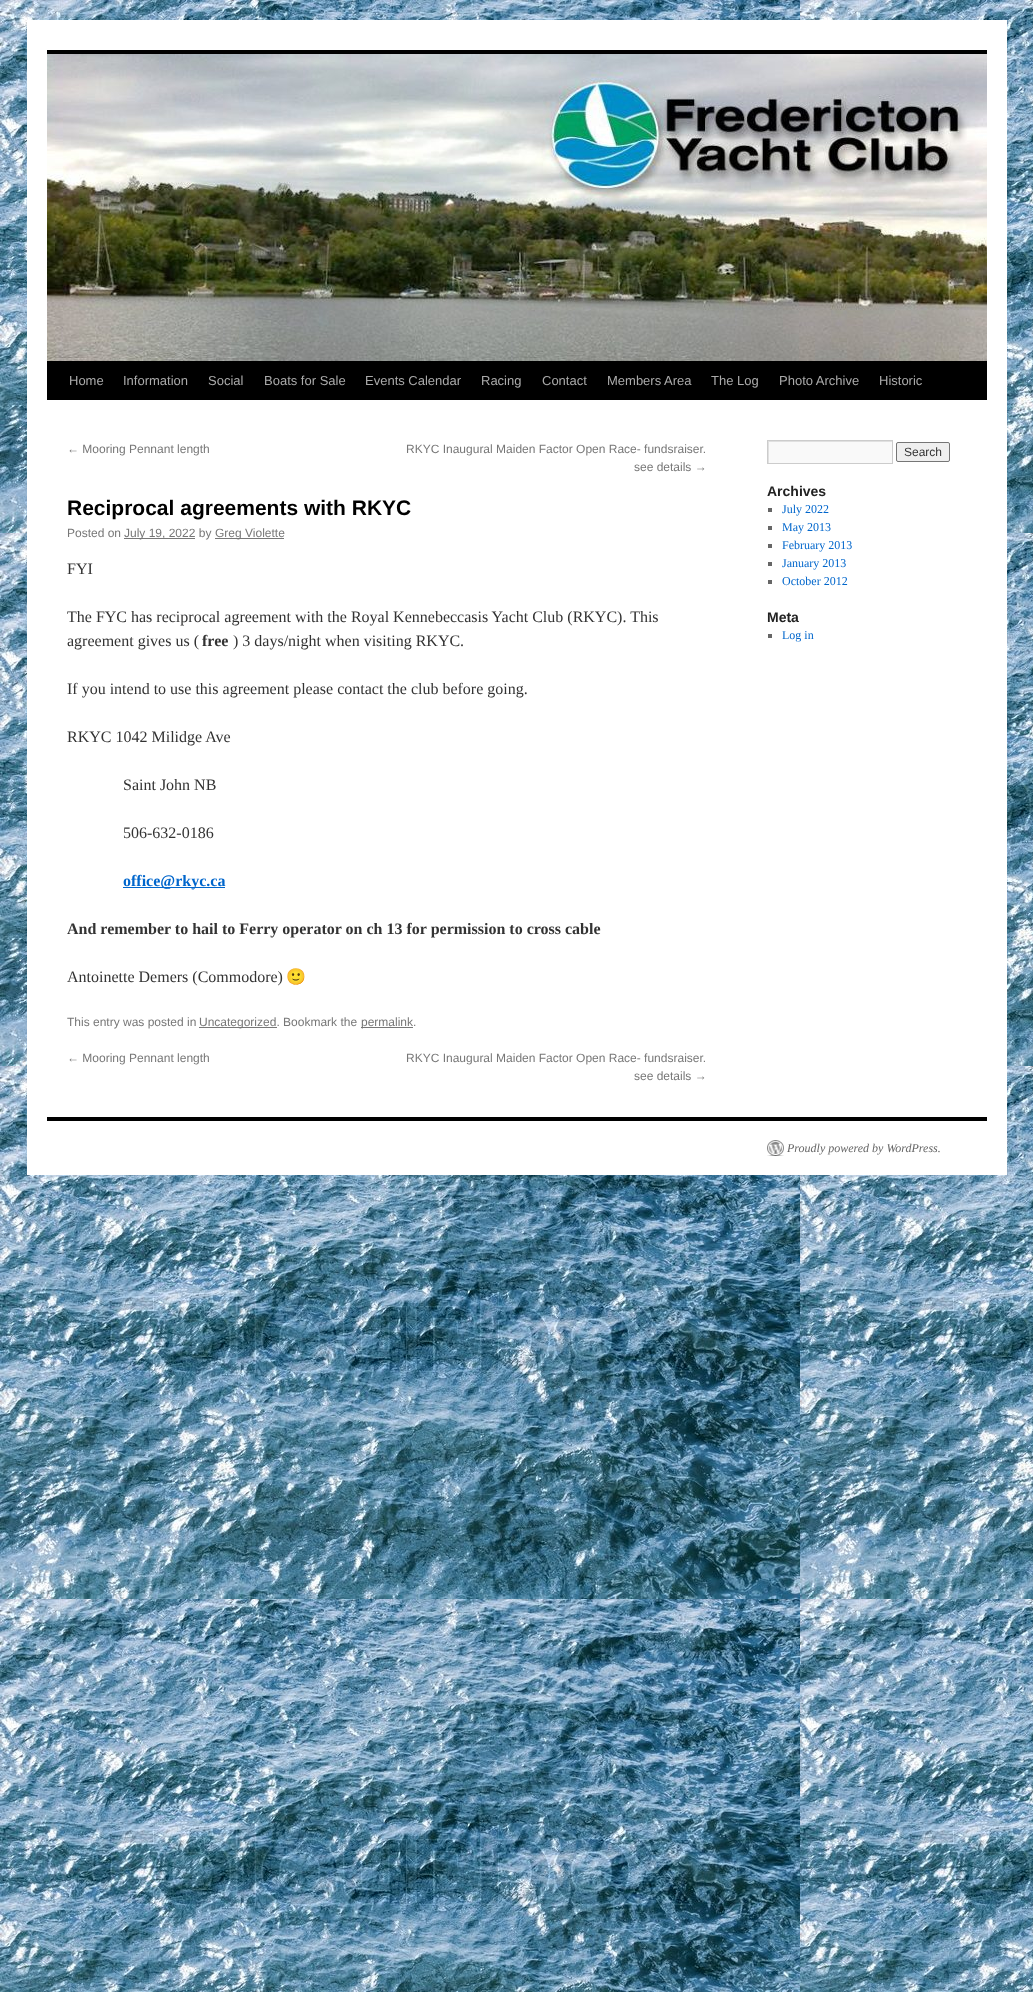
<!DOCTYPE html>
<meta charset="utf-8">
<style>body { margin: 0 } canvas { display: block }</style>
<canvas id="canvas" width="1033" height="1992"></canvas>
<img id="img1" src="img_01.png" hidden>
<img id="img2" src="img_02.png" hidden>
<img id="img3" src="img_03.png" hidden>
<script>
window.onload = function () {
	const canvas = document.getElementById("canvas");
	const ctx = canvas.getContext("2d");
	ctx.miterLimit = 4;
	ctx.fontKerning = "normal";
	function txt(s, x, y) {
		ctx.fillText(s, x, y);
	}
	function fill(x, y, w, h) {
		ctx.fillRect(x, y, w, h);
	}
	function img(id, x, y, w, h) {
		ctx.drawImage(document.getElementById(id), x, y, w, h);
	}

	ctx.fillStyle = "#FFFFFF";
	fill(0, 0, 1033, 1992);
	img("img1", 0, 0, 1033, 1992);
	fill(27, 20, 980, 1155);
	ctx.fillStyle = "#000000";
	fill(47, 50, 940, 4);
	fill(47, 361, 940, 39);
	img("img2", 47, 54, 940, 307);
	ctx.fillStyle = "#777777";
	fill(124, 538, 71, 1);
	fill(215, 538, 69, 1);
	ctx.fillStyle = "#0066CC";
	fill(123, 887, 102, 1);
	ctx.fillStyle = "#777777";
	fill(199, 1027, 78, 1);
	fill(361, 1027, 52, 1);
	ctx.fillStyle = "#F9F9F9";
	fill(769, 442, 123, 21);
	ctx.save();
	ctx.beginPath();
	ctx.rect(768, 441, 124, 22);
	ctx.clip();
	ctx.fillStyle = "#E0E0E0";
	ctx.beginPath();
	ctx.moveTo(669, 342);
	ctx.lineTo(991, 342);
	ctx.lineTo(991, 562);
	ctx.lineTo(669, 562);
	ctx.closePath();
	ctx.moveTo(769, 442);
	ctx.lineTo(893, 442);
	ctx.lineTo(893, 464);
	ctx.lineTo(769, 464);
	ctx.closePath();
	ctx.fill("evenodd");
	ctx.restore();
	ctx.strokeStyle = "#CCCCCC";
	ctx.strokeRect(767.5, 440.5, 125, 23);
	ctx.fillStyle = "#EFEFEF";
	ctx.beginPath();
	ctx.roundRect(896.5, 442.5, 53, 19, 1.5);
	ctx.fill();
	ctx.strokeStyle = "#767676";
	ctx.stroke();
	ctx.fillStyle = "#666666";
	fill(768, 508, 4, 4);
	fill(768, 526, 4, 4);
	fill(768, 544, 4, 4);
	fill(768, 562, 4, 4);
	fill(768, 580, 4, 4);
	fill(768, 634, 4, 4);
	ctx.fillStyle = "#000000";
	fill(47, 1117, 940, 4);
	img("img3", 767, 1140, 17, 16);
	ctx.font = "13px Liberation Sans";
	ctx.fillStyle = "#AAAAAA";
	txt("Home", 69, 385);
	txt("Information", 123, 385);
	txt("Social", 208, 385);
	txt("Boats for Sale", 264, 385);
	txt("Events Calendar", 365, 385);
	txt("Racing", 481, 385);
	txt("Contact", 542, 385);
	txt("Members Area", 607, 385);
	txt("The Log", 711, 385);
	txt("Photo Archive", 779, 385);
	txt("Historic", 879, 385);
	ctx.font = "12px Liberation Sans";
	ctx.fillStyle = "#777777";
	txt("← Mooring Pennant length", 67, 453);
	txt("RKYC Inaugural Maiden Factor Open Race- fundsraiser.", 406, 453);
	txt("see details →", 634, 471);
	ctx.font = "bold 21px Liberation Sans";
	ctx.fillStyle = "#000000";
	txt("Reciprocal agreements with RKYC", 67, 515);
	ctx.font = "12px Liberation Sans";
	ctx.fillStyle = "#777777";
	txt("Posted on", 67, 537);
	txt("July 19, 2022 by", 124, 537);
	txt("Greg Violette", 215, 537);
	ctx.font = "16px Liberation Serif";
	ctx.fillStyle = "#333333";
	txt("FYI", 67, 574);
	txt("The FYC has reciprocal agreement with the Royal Kennebeccasis Yacht Club (RKYC). This", 67, 622);
	txt("agreement gives us (", 67, 646);
	ctx.font = "bold 16px Liberation Serif";
	txt("free", 202, 646);
	ctx.font = "16px Liberation Serif";
	txt(") 3 days/night when visiting RKYC.", 233, 646);
	txt("If you intend to use this agreement please contact the club before going.", 67, 694);
	txt("RKYC 1042 Milidge Ave", 67, 742);
	txt("Saint John NB", 123, 790);
	txt("506-632-0186", 123, 838);
	ctx.font = "bold 16px Liberation Serif";
	ctx.fillStyle = "#0066CC";
	txt("office@rkyc.ca", 123, 886);
	ctx.fillStyle = "#333333";
	txt("And remember to hail to Ferry operator on ch 13 for permission to cross cable", 67, 934);
	ctx.font = "16px Liberation Serif";
	txt("Antoinette Demers (Commodore)", 67, 982);
	ctx.font = "16px Noto Color Emoji";
	txt("🙂", 286, 982);
	ctx.font = "12px Liberation Sans";
	ctx.fillStyle = "#777777";
	txt("This entry was posted in", 67, 1026);
	txt("Uncategorized. Bookmark the", 199, 1026);
	txt("permalink.", 361, 1026);
	txt("← Mooring Pennant length", 67, 1062);
	txt("RKYC Inaugural Maiden Factor Open Race- fundsraiser.", 406, 1062);
	txt("see details →", 634, 1080);
	ctx.fillStyle = "#333333";
	txt("Search", 904, 456);
	ctx.font = "bold 14px Liberation Sans";
	ctx.fillStyle = "#222222";
	txt("Archives", 767, 496);
	ctx.font = "12px Liberation Serif";
	ctx.fillStyle = "#0066CC";
	txt("July 2022", 782, 513);
	txt("May 2013", 782, 531);
	txt("February 2013", 782, 549);
	txt("January 2013", 782, 567);
	txt("October 2012", 782, 585);
	ctx.font = "bold 14px Liberation Sans";
	ctx.fillStyle = "#222222";
	txt("Meta", 767, 622);
	ctx.font = "12px Liberation Serif";
	ctx.fillStyle = "#0066CC";
	txt("Log in", 782, 639);
	ctx.font = "italic 12px Liberation Serif";
	ctx.fillStyle = "#666666";
	txt("Proudly powered by WordPress.", 787, 1152);
};
</script>
